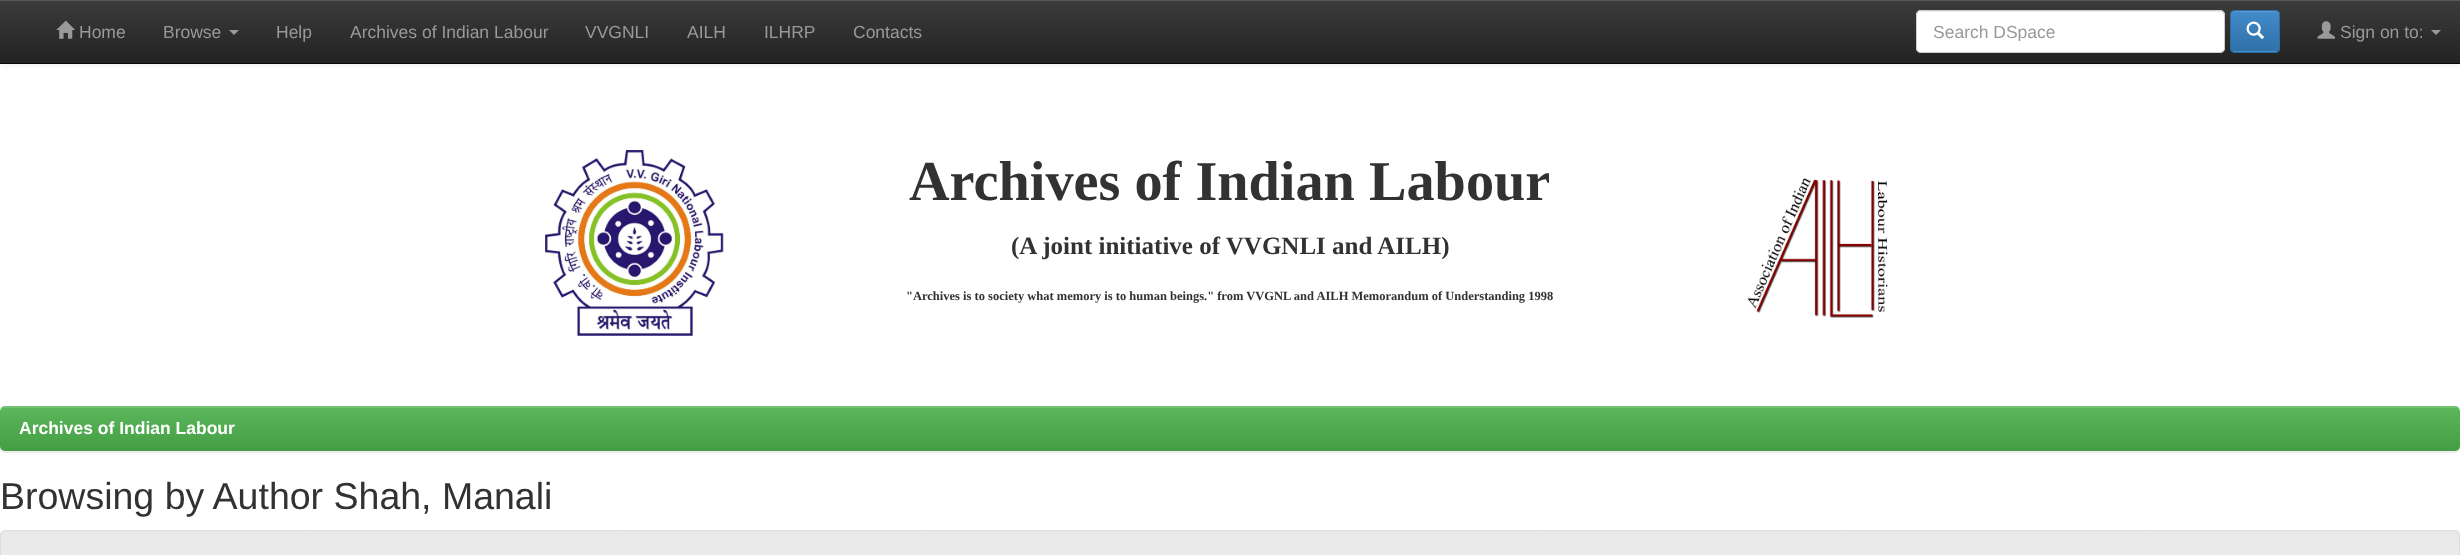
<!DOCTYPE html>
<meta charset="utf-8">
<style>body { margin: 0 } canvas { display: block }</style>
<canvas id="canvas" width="2460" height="555"></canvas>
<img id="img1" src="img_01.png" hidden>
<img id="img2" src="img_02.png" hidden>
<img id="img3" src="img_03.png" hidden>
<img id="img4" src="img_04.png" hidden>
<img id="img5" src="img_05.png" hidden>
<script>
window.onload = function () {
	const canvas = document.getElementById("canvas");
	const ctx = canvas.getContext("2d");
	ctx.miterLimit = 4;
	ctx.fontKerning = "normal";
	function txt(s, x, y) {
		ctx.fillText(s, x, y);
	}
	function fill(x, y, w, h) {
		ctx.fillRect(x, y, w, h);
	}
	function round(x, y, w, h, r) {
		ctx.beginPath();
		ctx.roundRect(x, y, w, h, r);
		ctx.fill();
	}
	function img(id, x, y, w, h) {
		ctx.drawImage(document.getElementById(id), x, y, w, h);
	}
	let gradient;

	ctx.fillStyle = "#FFFFFF";
	fill(0, 0, 2460, 555);
	ctx.fillStyle = "rgba(0, 0, 0, 0.07)";
	ctx.filter = "blur(3px)";
	ctx.beginPath();
	ctx.rect(0, 1, 2460, 64);
	ctx.fill();
	ctx.filter = "none";
	gradient = ctx.createLinearGradient(1230, 0, 1230, 63);
	gradient.addColorStop(0, "#3C3C3C");
	gradient.addColorStop(1, "#222222");
	ctx.fillStyle = gradient;
	fill(0, 1, 2460, 62);
	ctx.fillStyle = "#595959";
	fill(0, 0, 2460, 1);
	ctx.fillStyle = "#080808";
	fill(0, 63, 2460, 1);
	img("img1", 56, 20, 19, 19);
	ctx.fillStyle = "#999999";
	ctx.beginPath();
	ctx.moveTo(229, 30);
	ctx.lineTo(239, 30);
	ctx.lineTo(234, 35);
	ctx.closePath();
	ctx.fill();
	ctx.fillStyle = "#FFFFFF";
	round(1916, 10, 309, 43, 5);
	ctx.fillStyle = "#ECECEC";
	ctx.beginPath();
	ctx.moveTo(1921, 12);
	ctx.lineTo(2220, 12);
	ctx.bezierCurveTo(2222, 12, 2224, 14, 2224, 16);
	ctx.bezierCurveTo(2224, 13, 2223, 11, 2220, 11);
	ctx.lineTo(1922, 11);
	ctx.lineTo(1919, 12);
	ctx.bezierCurveTo(1918, 13, 1918, 15, 1918, 16);
	ctx.bezierCurveTo(1918, 14, 1919, 12, 1921, 12);
	ctx.closePath();
	ctx.fill();
	ctx.beginPath();
	ctx.roundRect(1916.5, 10.5, 308, 42, 4.5);
	ctx.strokeStyle = "#CCCCCC";
	ctx.stroke();
	ctx.fillStyle = "#428BCA";
	round(2230, 10, 50, 43, 5);
	ctx.save();
	ctx.beginPath();
	ctx.roundRect(2230, 10, 50, 43, 5);
	ctx.clip();
	gradient = ctx.createLinearGradient(2255, 11, 2255, 51);
	gradient.addColorStop(0, "#428BCA");
	gradient.addColorStop(1, "#3071A9");
	ctx.fillStyle = gradient;
	fill(2230, 11, 50, 40);
	ctx.restore();
	ctx.fillStyle = "#5E9CD2";
	ctx.beginPath();
	ctx.moveTo(2235, 12);
	ctx.lineTo(2275, 12);
	ctx.bezierCurveTo(2277, 12, 2279, 14, 2279, 16);
	ctx.bezierCurveTo(2279, 10, 2273, 11, 2268, 11);
	ctx.lineTo(2242, 11);
	ctx.bezierCurveTo(2237, 11, 2231, 10, 2231, 16);
	ctx.bezierCurveTo(2231, 14, 2233, 12, 2235, 12);
	ctx.closePath();
	ctx.fill();
	ctx.beginPath();
	ctx.roundRect(2230.5, 10.5, 49, 42, 4.5);
	ctx.strokeStyle = "#2D6CA2";
	ctx.stroke();
	img("img2", 2246, 21, 18, 18);
	img("img3", 2317, 21, 18, 18);
	ctx.fillStyle = "#999999";
	ctx.beginPath();
	ctx.moveTo(2431, 30);
	ctx.lineTo(2441, 30);
	ctx.lineTo(2436, 35);
	ctx.closePath();
	ctx.fill();
	img("img4", 545, 150, 179, 186);
	img("img5", 1747, 178, 141, 140);
	ctx.fillStyle = "rgba(0, 0, 0, 0.07)";
	ctx.filter = "blur(0.5px)";
	ctx.beginPath();
	ctx.roundRect(0, 408, 2460, 45, 5);
	ctx.fill();
	ctx.filter = "none";
	gradient = ctx.createLinearGradient(1230, 406, 1230, 451);
	gradient.addColorStop(0, "#5CB85C");
	gradient.addColorStop(1, "#449D44");
	ctx.fillStyle = gradient;
	round(0, 406, 2460, 45, 5);
	ctx.fillStyle = "rgba(255, 255, 255, 0.15)";
	ctx.beginPath();
	ctx.moveTo(5, 408);
	ctx.lineTo(2455, 408);
	ctx.bezierCurveTo(2458, 408, 2460, 410, 2460, 412);
	ctx.lineTo(2460, 411);
	ctx.bezierCurveTo(2460, 408, 2458, 406, 2455, 406);
	ctx.lineTo(5, 406);
	ctx.bezierCurveTo(2, 406, 0, 408, 0, 411);
	ctx.lineTo(0, 412);
	ctx.bezierCurveTo(0, 410, 2, 408, 5, 408);
	ctx.closePath();
	ctx.fill();
	ctx.save();
	ctx.beginPath();
	ctx.roundRect(0, 530, 2460, 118, 5);
	ctx.clip();
	gradient = ctx.createLinearGradient(1230, 531, 1230, 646);
	gradient.addColorStop(0, "#E8E8E8");
	gradient.addColorStop(1, "#F5F5F5");
	ctx.fillStyle = gradient;
	fill(0, 531, 2460, 24);
	ctx.restore();
	ctx.beginPath();
	ctx.roundRect(0.5, 530.5, 2459, 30, 4.5);
	ctx.strokeStyle = "#DCDCDC";
	ctx.stroke();
	ctx.font = "17.5px Liberation Sans";
	ctx.fillStyle = "#999999";
	txt("Home", 79, 38);
	txt("Browse", 163, 38);
	txt("Help", 276, 38);
	txt("Archives of Indian Labour", 350, 38);
	txt("VVGNLI", 585, 38);
	txt("AILH", 687, 38);
	txt("ILHRP", 764, 38);
	txt("Contacts", 853, 38);
	ctx.save();
	ctx.beginPath();
	ctx.rect(1933, 21, 276, 20);
	ctx.clip();
	txt("Search DSpace", 1933, 38);
	ctx.restore();
	txt("Sign on to:", 2340, 38);
	ctx.font = "bold 56.25px Liberation Serif";
	ctx.fillStyle = "#323232";
	txt("Archives of Indian Labour", 909, 200);
	ctx.font = "bold 25px Liberation Serif";
	txt("(A joint initiative of VVGNLI and AILH)", 1011, 254);
	ctx.font = "bold 12.5px Liberation Serif";
	txt("\"Archives is to society what memory is to human beings.\" from VVGNL and AILH Memorandum of Understanding 1998", 906, 300);
	ctx.font = "bold 17.5px Liberation Sans";
	ctx.fillStyle = "#FFFFFF";
	txt("Archives of Indian Labour", 19, 434);
	ctx.font = "37.5px Liberation Sans";
	ctx.fillStyle = "#323232";
	txt("Browsing by Author Shah, Manali", 0, 509);
};
</script>
